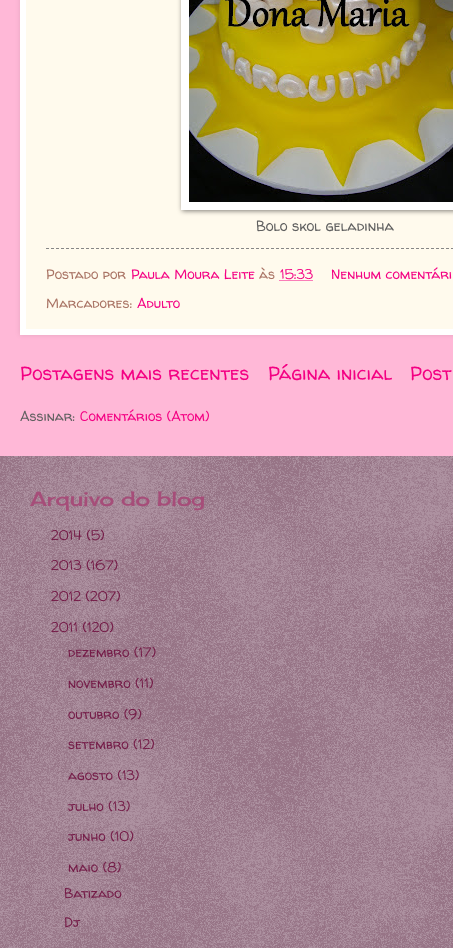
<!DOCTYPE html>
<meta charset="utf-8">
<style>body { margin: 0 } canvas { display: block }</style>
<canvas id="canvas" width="453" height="948"></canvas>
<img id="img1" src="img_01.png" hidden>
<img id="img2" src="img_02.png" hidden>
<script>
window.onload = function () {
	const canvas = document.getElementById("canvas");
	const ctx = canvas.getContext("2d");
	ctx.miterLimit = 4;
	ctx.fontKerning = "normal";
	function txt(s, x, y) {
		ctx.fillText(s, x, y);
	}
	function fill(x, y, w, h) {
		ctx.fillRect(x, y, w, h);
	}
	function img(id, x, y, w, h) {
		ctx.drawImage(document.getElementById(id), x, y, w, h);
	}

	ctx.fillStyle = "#FFB8D7";
	fill(0, 0, 453, 948);
	ctx.fillStyle = "rgba(0, 0, 0, 0.1)";
	ctx.filter = "blur(2.5px)";
	ctx.beginPath();
	ctx.rect(20, -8, 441, 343);
	ctx.fill();
	ctx.filter = "none";
	ctx.fillStyle = "#FFFAED";
	ctx.beginPath();
	ctx.rect(23, -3, 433, 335);
	ctx.fill();
	ctx.strokeStyle = "#FFFFFF";
	ctx.lineWidth = 6;
	ctx.stroke();
	ctx.fillStyle = "rgba(0, 0, 0, 0.5)";
	ctx.filter = "blur(2.5px)";
	ctx.beginPath();
	ctx.rect(182, -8, 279, 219);
	ctx.fill();
	ctx.filter = "none";
	ctx.fillStyle = "#FFFFFF";
	fill(181, 0, 272, 210);
	img("img1", 189, 0, 264, 202);
	ctx.beginPath();
	ctx.moveTo(46, 248.5);
	ctx.lineTo(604, 248.5);
	ctx.strokeStyle = "#868686";
	ctx.lineWidth = 1;
	ctx.setLineDash([3, 2]);
	ctx.stroke();
	ctx.beginPath();
	ctx.moveTo(279.5, 280.5);
	ctx.lineTo(313, 280.5);
	ctx.strokeStyle = "#F40083";
	ctx.setLineDash([1, 1]);
	ctx.stroke();
	ctx.fillStyle = "#4C1130";
	fill(0, 456, 453, 492);
	img("img2", 0, 456, 453, 492);
	ctx.font = "14.5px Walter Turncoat";
	ctx.fillStyle = "#606060";
	txt("Bolo skol geladinha", 256, 231);
	ctx.font = "13.75px Walter Turncoat";
	ctx.fillStyle = "#A97364";
	txt("Postado por", 46, 279);
	ctx.fillStyle = "#F40083";
	txt("Paula Moura Leite", 131, 279);
	ctx.fillStyle = "#A97364";
	txt("às", 259, 279);
	ctx.fillStyle = "#F40083";
	txt("15:33", 280, 279);
	txt("Nenhum comentári", 331, 279);
	ctx.fillStyle = "#A97364";
	txt("Marcadores:", 46, 308);
	ctx.fillStyle = "#F40083";
	txt("Adulto", 137, 308);
	ctx.font = "19.25px Walter Turncoat";
	txt("Postagens mais recentes", 20, 380);
	txt("Página inicial", 268, 380);
	txt("Post", 410, 380);
	ctx.font = "13.75px Walter Turncoat";
	ctx.fillStyle = "#606060";
	txt("Assinar:", 20, 421);
	ctx.fillStyle = "#F40083";
	txt("Comentários (Atom)", 80, 421);
	ctx.font = "20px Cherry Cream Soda";
	ctx.fillStyle = "#A64D79";
	txt("Arquivo do blog", 30, 506);
	ctx.font = "13.75px Walter Turncoat";
	ctx.fillStyle = "#741B47";
	txt("2014 (5)", 51, 540);
	txt("2013 (167)", 51, 570);
	txt("2012 (207)", 51, 601);
	txt("2011 (120)", 51, 632);
	txt("dezembro (17)", 68, 657);
	txt("novembro (11)", 68, 688);
	txt("outubro (9)", 68, 719);
	txt("setembro (12)", 68, 749);
	txt("agosto (13)", 68, 780);
	txt("julho (13)", 68, 811);
	txt("junho (10)", 68, 841);
	txt("maio (8)", 68, 872);
	txt("Batizado", 64, 898);
	txt("Dj", 64, 927);
};
</script>
